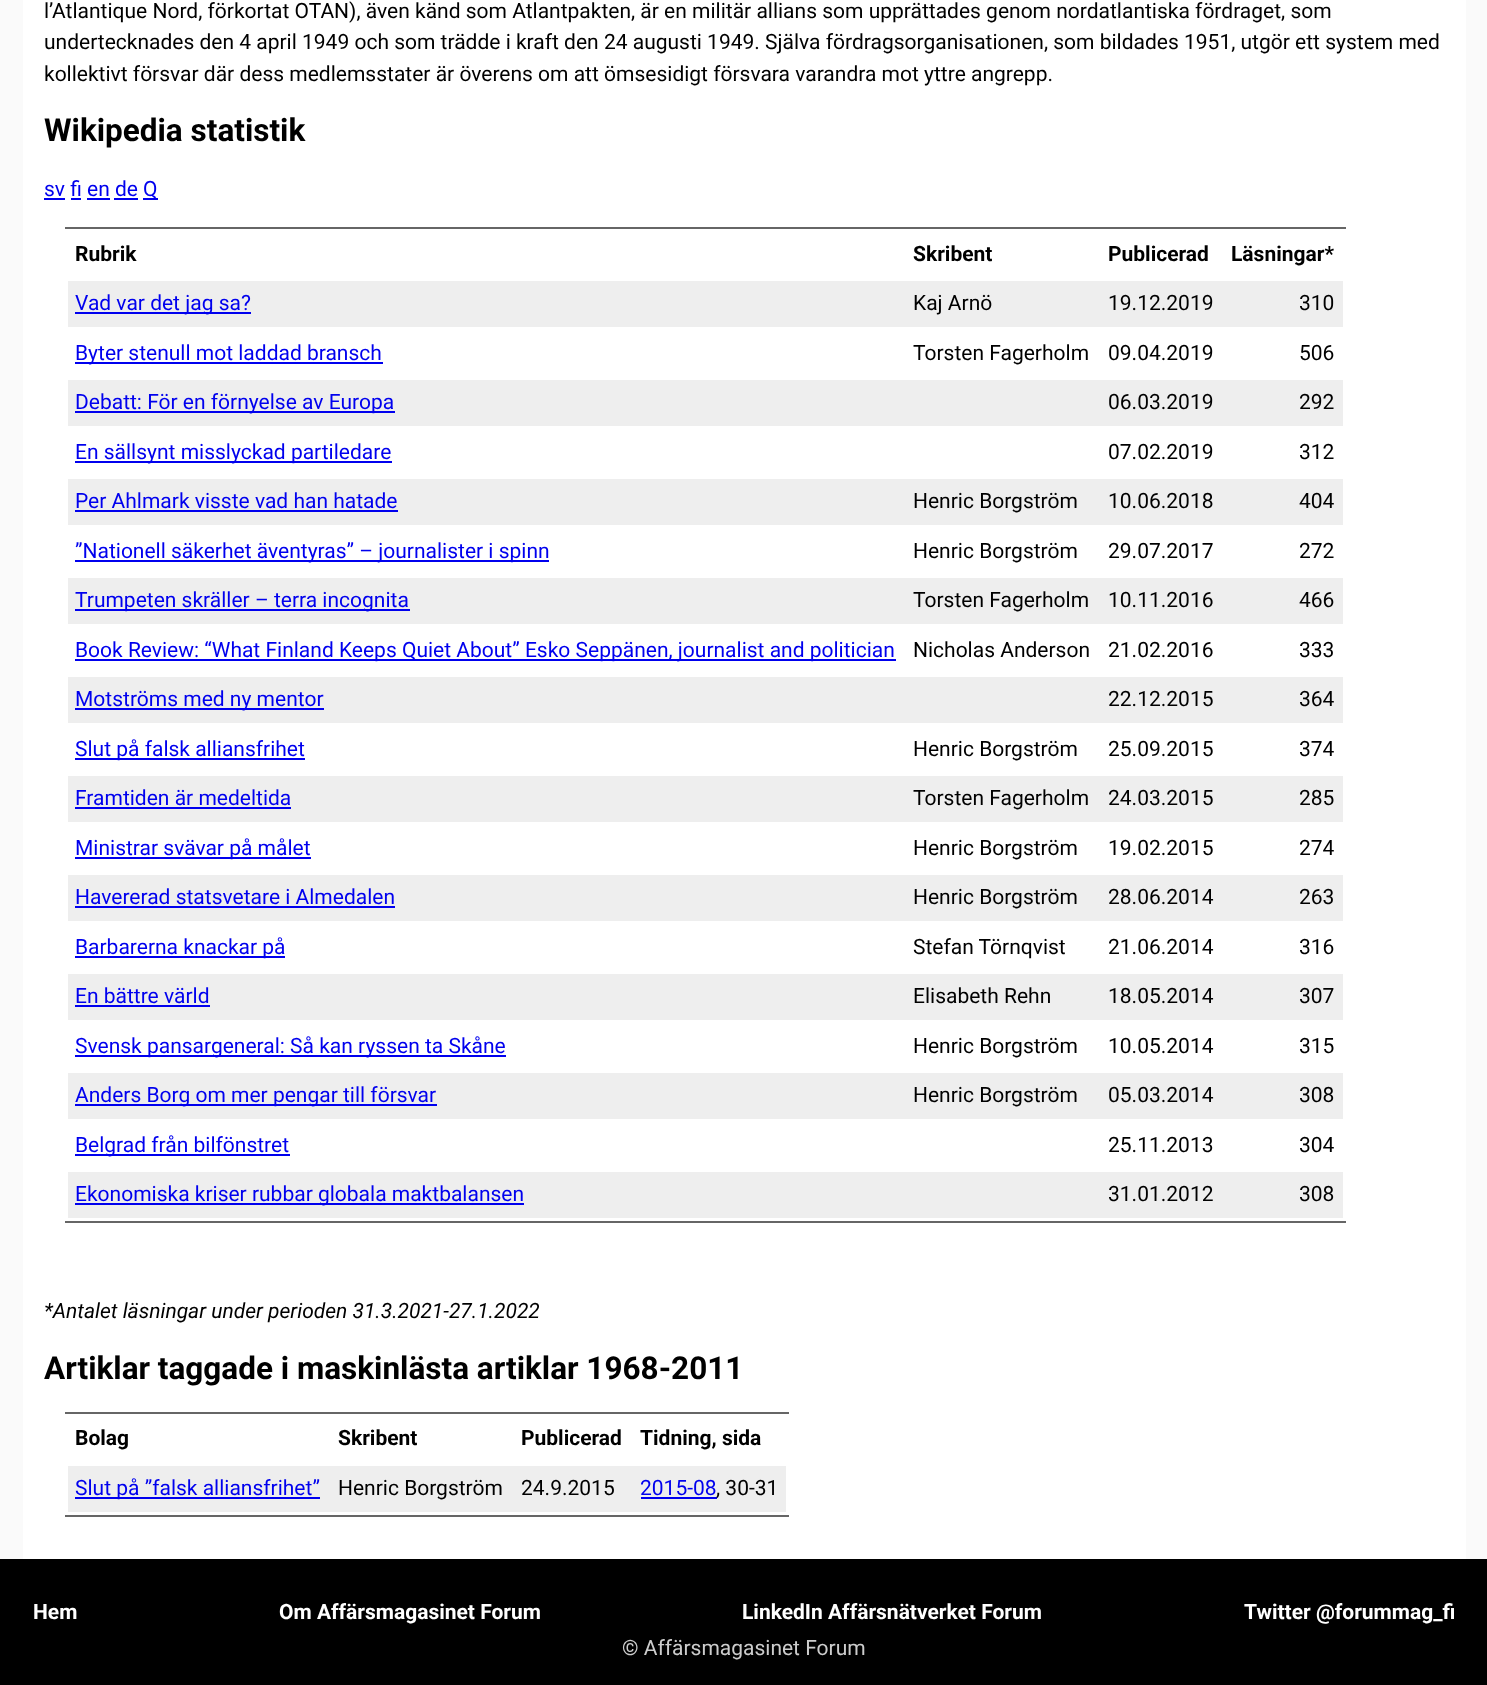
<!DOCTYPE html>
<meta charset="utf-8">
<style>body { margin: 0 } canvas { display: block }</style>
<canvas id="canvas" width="1487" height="1685"></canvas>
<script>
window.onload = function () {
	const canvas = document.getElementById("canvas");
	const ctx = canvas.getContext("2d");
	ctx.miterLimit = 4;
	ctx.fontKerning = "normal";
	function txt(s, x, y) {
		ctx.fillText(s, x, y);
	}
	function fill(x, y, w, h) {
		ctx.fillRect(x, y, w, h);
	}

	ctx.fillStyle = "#FAFAFA";
	fill(0, 0, 1487, 1685);
	ctx.fillStyle = "#FFFFFF";
	fill(23, 0, 1443, 1559);
	ctx.fillStyle = "#0000EE";
	fill(44, 198, 21, 2);
	fill(143, 198, 15, 2);
	fill(71, 198, 10, 2);
	fill(87, 198, 23, 2);
	fill(114, 198, 24, 2);
	ctx.fillStyle = "#666666";
	fill(65, 227, 1281, 2);
	fill(65, 1221, 1281, 2);
	ctx.fillStyle = "#EEEEEE";
	fill(68, 281, 1275, 46);
	ctx.fillStyle = "#0000EE";
	fill(75, 312, 176, 2);
	fill(75, 362, 308, 2);
	ctx.fillStyle = "#EEEEEE";
	fill(68, 380, 1275, 46);
	ctx.fillStyle = "#0000EE";
	fill(75, 411, 320, 2);
	fill(75, 461, 317, 2);
	ctx.fillStyle = "#EEEEEE";
	fill(68, 479, 1275, 46);
	ctx.fillStyle = "#0000EE";
	fill(75, 510, 323, 2);
	fill(75, 560, 474, 2);
	ctx.fillStyle = "#EEEEEE";
	fill(68, 578, 1275, 46);
	ctx.fillStyle = "#0000EE";
	fill(75, 609, 335, 2);
	fill(75, 659, 821, 2);
	ctx.fillStyle = "#EEEEEE";
	fill(68, 677, 1275, 46);
	ctx.fillStyle = "#0000EE";
	fill(75, 708, 249, 2);
	fill(75, 758, 230, 2);
	ctx.fillStyle = "#EEEEEE";
	fill(68, 776, 1275, 46);
	ctx.fillStyle = "#0000EE";
	fill(75, 807, 216, 2);
	fill(75, 857, 236, 2);
	ctx.fillStyle = "#EEEEEE";
	fill(68, 875, 1275, 46);
	ctx.fillStyle = "#0000EE";
	fill(75, 906, 320, 2);
	fill(75, 956, 210, 2);
	ctx.fillStyle = "#EEEEEE";
	fill(68, 974, 1275, 46);
	ctx.fillStyle = "#0000EE";
	fill(75, 1005, 135, 2);
	fill(75, 1055, 431, 2);
	ctx.fillStyle = "#EEEEEE";
	fill(68, 1073, 1275, 46);
	ctx.fillStyle = "#0000EE";
	fill(75, 1104, 362, 2);
	fill(75, 1154, 215, 2);
	ctx.fillStyle = "#EEEEEE";
	fill(68, 1172, 1275, 46);
	ctx.fillStyle = "#0000EE";
	fill(75, 1203, 449, 2);
	ctx.fillStyle = "#666666";
	fill(65, 1412, 724, 2);
	fill(65, 1515, 724, 2);
	ctx.fillStyle = "#EEEEEE";
	fill(68, 1466, 718, 46);
	ctx.fillStyle = "#0000EE";
	fill(75, 1497, 245, 2);
	fill(641, 1497, 76, 2);
	ctx.fillStyle = "#000000";
	fill(0, 1559, 1487, 126);
	ctx.font = "21px Roboto";
	txt("l’Atlantique Nord, förkortat OTAN), även känd som Atlantpakten, är en militär allians som upprättades genom nordatlantiska fördraget, som", 44, 18);
	txt("undertecknades den 4 april 1949 och som trädde i kraft den 24 augusti 1949. Själva fördragsorganisationen, som bildades 1951, utgör ett system med", 44, 49);
	txt("kollektivt försvar där dess medlemsstater är överens om att ömsesidigt försvara varandra mot yttre angrepp.", 44, 81);
	ctx.font = "bold 31.5px Roboto";
	txt("Wikipedia statistik", 44, 141);
	ctx.font = "21px Roboto";
	ctx.fillStyle = "#0000EE";
	txt("sv fi en de", 44, 196);
	txt("Q", 143, 196);
	ctx.font = "bold 21px Roboto";
	ctx.fillStyle = "#000000";
	txt("Rubrik", 75, 261);
	txt("Skribent", 913, 261);
	txt("Publicerad", 1108, 261);
	txt("Läsningar*", 1231, 261);
	ctx.font = "21px Roboto";
	ctx.fillStyle = "#0000EE";
	txt("Vad var det jag sa?", 75, 310);
	ctx.fillStyle = "#000000";
	txt("Kaj Arnö", 913, 310);
	txt("19.12.2019", 1108, 310);
	txt("310", 1299, 310);
	ctx.fillStyle = "#0000EE";
	txt("Byter stenull mot laddad bransch", 75, 360);
	ctx.fillStyle = "#000000";
	txt("Torsten Fagerholm", 913, 360);
	txt("09.04.2019", 1108, 360);
	txt("506", 1299, 360);
	ctx.fillStyle = "#0000EE";
	txt("Debatt: För en förnyelse av Europa", 75, 409);
	ctx.fillStyle = "#000000";
	txt("06.03.2019", 1108, 409);
	txt("292", 1299, 409);
	ctx.fillStyle = "#0000EE";
	txt("En sällsynt misslyckad partiledare", 75, 459);
	ctx.fillStyle = "#000000";
	txt("07.02.2019", 1108, 459);
	txt("312", 1299, 459);
	ctx.fillStyle = "#0000EE";
	txt("Per Ahlmark visste vad han hatade", 75, 508);
	ctx.fillStyle = "#000000";
	txt("Henric Borgström", 913, 508);
	txt("10.06.2018", 1108, 508);
	txt("404", 1299, 508);
	ctx.fillStyle = "#0000EE";
	txt("”Nationell säkerhet äventyras” – journalister i spinn", 75, 558);
	ctx.fillStyle = "#000000";
	txt("Henric Borgström", 913, 558);
	txt("29.07.2017", 1108, 558);
	txt("272", 1299, 558);
	ctx.fillStyle = "#0000EE";
	txt("Trumpeten skräller – terra incognita", 75, 607);
	ctx.fillStyle = "#000000";
	txt("Torsten Fagerholm", 913, 607);
	txt("10.11.2016", 1108, 607);
	txt("466", 1299, 607);
	ctx.fillStyle = "#0000EE";
	txt("Book Review: “What Finland Keeps Quiet About” Esko Seppänen, journalist and politician", 75, 657);
	ctx.fillStyle = "#000000";
	txt("Nicholas Anderson", 913, 657);
	txt("21.02.2016", 1108, 657);
	txt("333", 1299, 657);
	ctx.fillStyle = "#0000EE";
	txt("Motströms med ny mentor", 75, 706);
	ctx.fillStyle = "#000000";
	txt("22.12.2015", 1108, 706);
	txt("364", 1299, 706);
	ctx.fillStyle = "#0000EE";
	txt("Slut på falsk alliansfrihet", 75, 756);
	ctx.fillStyle = "#000000";
	txt("Henric Borgström", 913, 756);
	txt("25.09.2015", 1108, 756);
	txt("374", 1299, 756);
	ctx.fillStyle = "#0000EE";
	txt("Framtiden är medeltida", 75, 805);
	ctx.fillStyle = "#000000";
	txt("Torsten Fagerholm", 913, 805);
	txt("24.03.2015", 1108, 805);
	txt("285", 1299, 805);
	ctx.fillStyle = "#0000EE";
	txt("Ministrar svävar på målet", 75, 855);
	ctx.fillStyle = "#000000";
	txt("Henric Borgström", 913, 855);
	txt("19.02.2015", 1108, 855);
	txt("274", 1299, 855);
	ctx.fillStyle = "#0000EE";
	txt("Havererad statsvetare i Almedalen", 75, 904);
	ctx.fillStyle = "#000000";
	txt("Henric Borgström", 913, 904);
	txt("28.06.2014", 1108, 904);
	txt("263", 1299, 904);
	ctx.fillStyle = "#0000EE";
	txt("Barbarerna knackar på", 75, 954);
	ctx.fillStyle = "#000000";
	txt("Stefan Törnqvist", 913, 954);
	txt("21.06.2014", 1108, 954);
	txt("316", 1299, 954);
	ctx.fillStyle = "#0000EE";
	txt("En bättre värld", 75, 1003);
	ctx.fillStyle = "#000000";
	txt("Elisabeth Rehn", 913, 1003);
	txt("18.05.2014", 1108, 1003);
	txt("307", 1299, 1003);
	ctx.fillStyle = "#0000EE";
	txt("Svensk pansargeneral: Så kan ryssen ta Skåne", 75, 1053);
	ctx.fillStyle = "#000000";
	txt("Henric Borgström", 913, 1053);
	txt("10.05.2014", 1108, 1053);
	txt("315", 1299, 1053);
	ctx.fillStyle = "#0000EE";
	txt("Anders Borg om mer pengar till försvar", 75, 1102);
	ctx.fillStyle = "#000000";
	txt("Henric Borgström", 913, 1102);
	txt("05.03.2014", 1108, 1102);
	txt("308", 1299, 1102);
	ctx.fillStyle = "#0000EE";
	txt("Belgrad från bilfönstret", 75, 1152);
	ctx.fillStyle = "#000000";
	txt("25.11.2013", 1108, 1152);
	txt("304", 1299, 1152);
	ctx.fillStyle = "#0000EE";
	txt("Ekonomiska kriser rubbar globala maktbalansen", 75, 1201);
	ctx.fillStyle = "#000000";
	txt("31.01.2012", 1108, 1201);
	txt("308", 1299, 1201);
	ctx.font = "italic 21px Roboto";
	txt("*Antalet läsningar under perioden 31.3.2021-27.1.2022", 44, 1318);
	ctx.font = "bold 31.5px Roboto";
	txt("Artiklar taggade i maskinlästa artiklar 1968-2011", 44, 1379);
	ctx.font = "bold 21px Roboto";
	txt("Bolag", 75, 1445);
	txt("Skribent", 338, 1445);
	txt("Publicerad", 521, 1445);
	txt("Tidning, sida", 640, 1445);
	ctx.font = "21px Roboto";
	ctx.fillStyle = "#0000EE";
	txt("Slut på ”falsk alliansfrihet”", 75, 1495);
	ctx.fillStyle = "#000000";
	txt("Henric Borgström", 338, 1495);
	txt("24.9.2015", 521, 1495);
	ctx.fillStyle = "#0000EE";
	txt("2015-08", 640, 1495);
	ctx.fillStyle = "#000000";
	txt(", 30-31", 716, 1495);
	ctx.font = "bold 21px Roboto";
	ctx.fillStyle = "#FFFFFF";
	txt("Hem", 33, 1619);
	txt("Om Affärsmagasinet Forum", 279, 1619);
	txt("LinkedIn Affärsnätverket Forum", 742, 1619);
	txt("Twitter @forummag_fi", 1244, 1619);
	ctx.font = "21px Roboto";
	ctx.fillStyle = "#CCCCCC";
	txt("© Affärsmagasinet Forum", 622, 1655);
};
</script>
